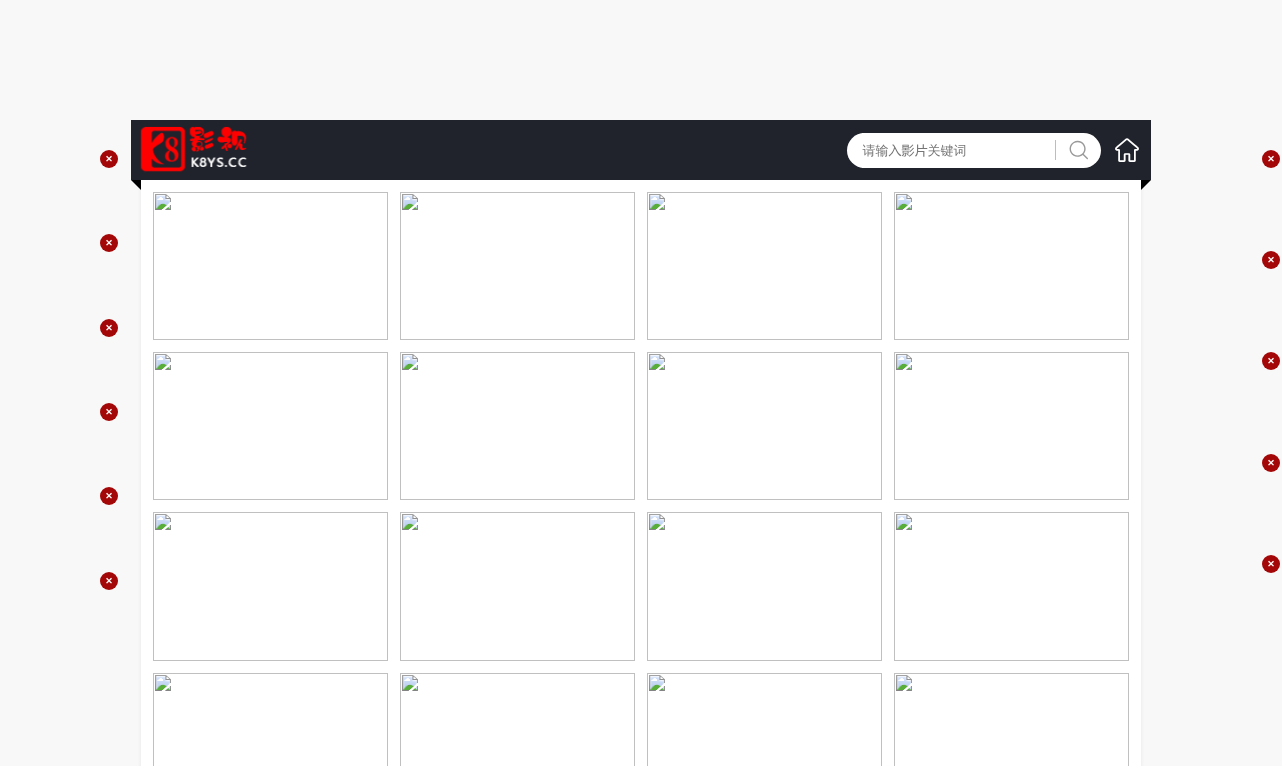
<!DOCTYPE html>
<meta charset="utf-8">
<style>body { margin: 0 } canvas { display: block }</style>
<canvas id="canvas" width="1282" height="766"></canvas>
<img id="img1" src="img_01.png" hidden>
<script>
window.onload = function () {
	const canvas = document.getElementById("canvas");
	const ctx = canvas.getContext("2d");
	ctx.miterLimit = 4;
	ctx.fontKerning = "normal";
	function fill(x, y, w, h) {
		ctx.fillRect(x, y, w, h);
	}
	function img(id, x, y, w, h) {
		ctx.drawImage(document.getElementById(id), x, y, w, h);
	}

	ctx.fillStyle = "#FFFFFF";
	fill(0, 0, 1282, 766);
	img("img1", 0, 0, 1282, 766);
};
</script>
